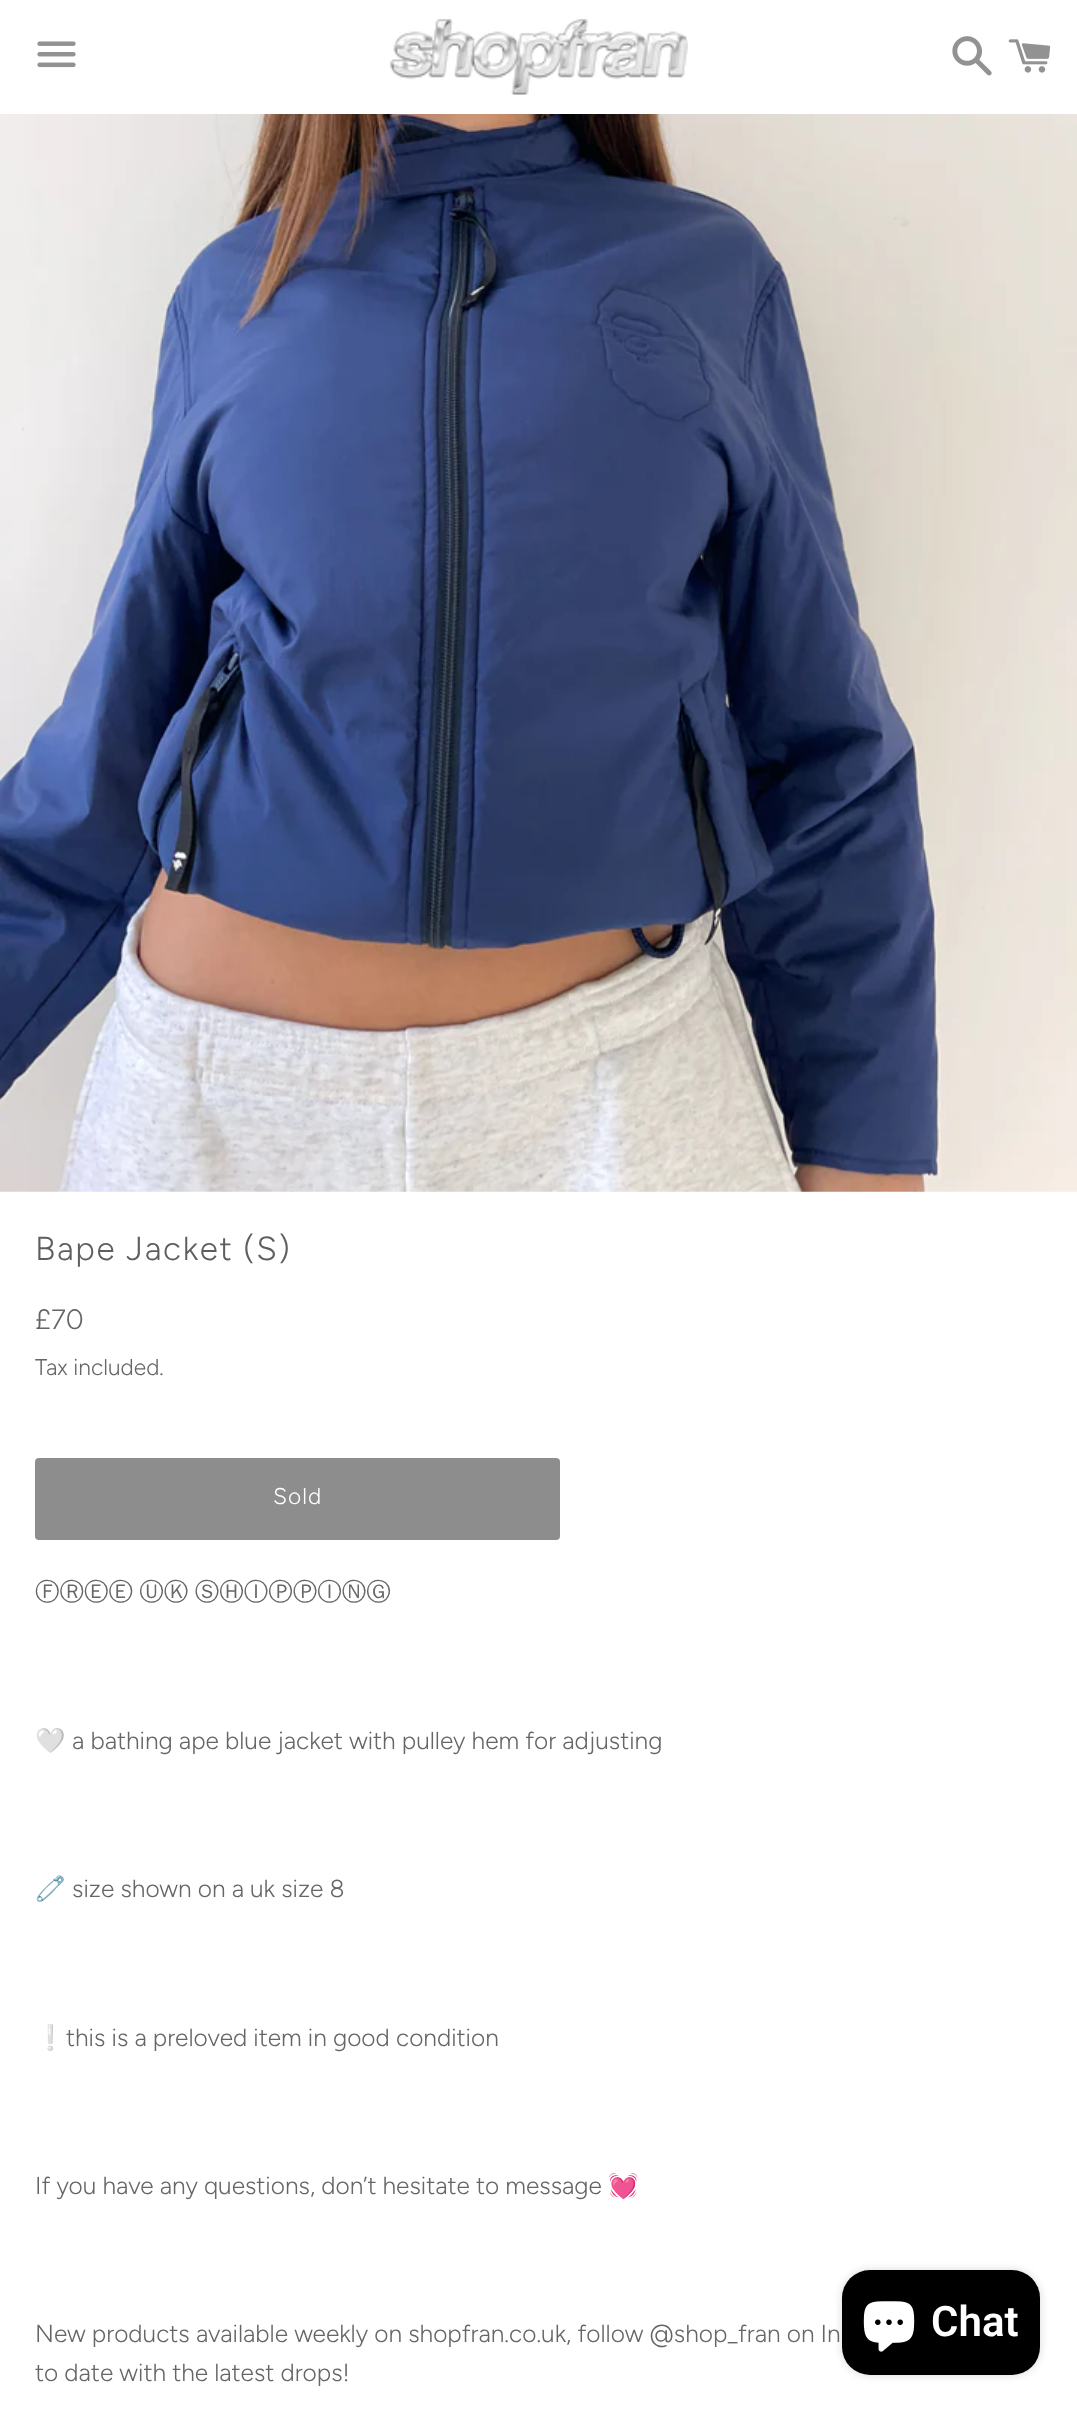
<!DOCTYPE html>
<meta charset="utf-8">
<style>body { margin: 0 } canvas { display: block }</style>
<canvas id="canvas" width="1077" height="2410"></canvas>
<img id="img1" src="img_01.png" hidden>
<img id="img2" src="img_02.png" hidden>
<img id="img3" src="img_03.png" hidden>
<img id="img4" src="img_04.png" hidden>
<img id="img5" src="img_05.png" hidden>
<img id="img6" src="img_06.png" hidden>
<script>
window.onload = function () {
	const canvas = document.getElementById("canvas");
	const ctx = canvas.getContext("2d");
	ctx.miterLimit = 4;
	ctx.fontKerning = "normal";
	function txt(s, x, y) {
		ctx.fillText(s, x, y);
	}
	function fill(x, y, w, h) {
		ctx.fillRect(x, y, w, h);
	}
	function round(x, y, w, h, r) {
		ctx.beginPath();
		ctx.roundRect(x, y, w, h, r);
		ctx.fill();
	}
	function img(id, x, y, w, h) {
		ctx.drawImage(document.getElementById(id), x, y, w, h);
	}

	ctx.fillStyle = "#FFFFFF";
	fill(0, 0, 1077, 2410);
	img("img1", 37, 41, 39, 27);
	img("img2", 390, 19, 298, 76);
	img("img3", 952, 36, 40, 40);
	img("img4", 1008, 39, 43, 34);
	img("img5", 0, 114, 1077, 1078);
	ctx.fillStyle = "#8D8D8D";
	ctx.beginPath();
	ctx.roundRect(37, 1460, 521, 78, 2);
	ctx.fill();
	ctx.strokeStyle = "#8D8D8D";
	ctx.lineWidth = 4;
	ctx.stroke();
	ctx.fillStyle = "rgba(0, 0, 0, 0.15)";
	ctx.filter = "blur(4.5px)";
	ctx.beginPath();
	ctx.roundRect(842, 2270, 198, 105, 28);
	ctx.fill();
	ctx.filter = "none";
	ctx.fillStyle = "#000000";
	round(842, 2270, 198, 105, 28);
	img("img6", 863, 2301, 52, 51);
	ctx.letterSpacing = "1.7px";
	ctx.font = "300 33.25px Figtree";
	ctx.fillStyle = "#5E5E5E";
	txt("Bape Jacket (S)", 35, 1260);
	ctx.letterSpacing = "0px";
	ctx.font = "300 28px Figtree";
	ctx.fillStyle = "#666666";
	txt("£70", 35, 1329);
	ctx.font = "300 22.75px Figtree";
	txt("Tax included.", 35, 1375);
	ctx.letterSpacing = "1px";
	ctx.fillStyle = "#FFFFFF";
	txt("Sold", 273, 1504);
	ctx.letterSpacing = "0px";
	ctx.wordSpacing = "-1px";
	ctx.font = "500 24.5px WenQuanYi Zen Hei";
	ctx.fillStyle = "#666666";
	txt("ⒻⓇⒺⒺ ⓊⓀ ⓈⒽⒾⓅⓅⒾⓃⒼ", 35, 1600);
	ctx.wordSpacing = "0px";
	ctx.font = "24.5px Noto Color Emoji";
	txt("🤍", 35, 1749);
	ctx.font = "300 24.5px Figtree";
	txt("a bathing ape blue jacket with pulley hem for adjusting", 72, 1749);
	ctx.font = "24.5px Noto Color Emoji";
	txt("🧷", 35, 1897);
	ctx.font = "300 24.5px Figtree";
	txt("size shown on a uk size 8", 72, 1897);
	ctx.font = "24.5px Noto Color Emoji";
	txt("❕", 35, 2046);
	ctx.font = "300 24.5px Figtree";
	txt("this is a preloved item in good condition", 66, 2046);
	txt("If you have any questions, don’t hesitate to message", 35, 2194);
	ctx.font = "24.5px Noto Color Emoji";
	txt("💓", 608, 2194);
	ctx.font = "300 24.5px Figtree";
	txt("New products available weekly on shopfran.co.uk, follow @shop_fran on In", 35, 2342);
	txt("to date with the latest drops!", 35, 2381);
	ctx.font = "600 42px Roboto";
	ctx.fillStyle = "#FFFFFF";
	txt("Chat", 931, 2336);
};
</script>
